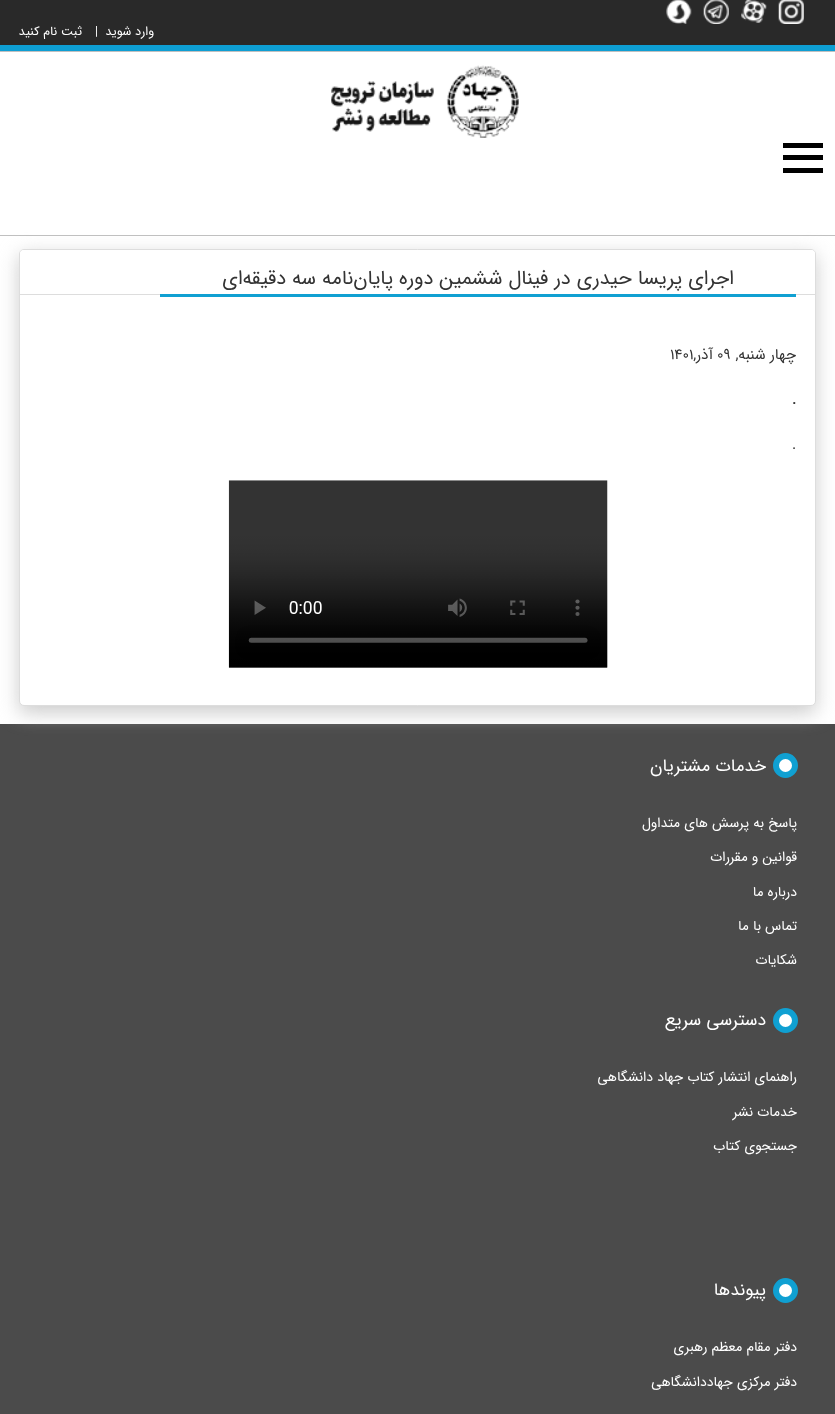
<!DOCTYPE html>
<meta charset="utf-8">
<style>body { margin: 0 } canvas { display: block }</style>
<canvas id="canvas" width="835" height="1414"></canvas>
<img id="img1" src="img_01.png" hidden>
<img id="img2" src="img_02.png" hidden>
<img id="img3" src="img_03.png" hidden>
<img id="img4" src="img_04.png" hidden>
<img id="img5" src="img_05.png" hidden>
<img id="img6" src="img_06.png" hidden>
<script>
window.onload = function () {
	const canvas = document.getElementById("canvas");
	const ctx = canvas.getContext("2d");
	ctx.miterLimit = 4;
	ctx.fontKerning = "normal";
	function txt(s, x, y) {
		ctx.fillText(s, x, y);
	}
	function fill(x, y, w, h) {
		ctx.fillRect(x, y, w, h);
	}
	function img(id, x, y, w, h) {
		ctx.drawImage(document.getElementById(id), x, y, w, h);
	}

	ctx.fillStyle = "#FFFFFF";
	fill(0, 0, 835, 1414);
	ctx.fillStyle = "#292929";
	fill(0, 0, 835, 45);
	ctx.fillStyle = "#0E9ED3";
	fill(0, 45, 835, 6);
	img("img1", 778, 0, 26, 24);
	img("img2", 741, 0, 26, 23);
	img("img3", 703, 0, 26, 24);
	img("img4", 666, 0, 26, 24);
	ctx.fillStyle = "#C0C0C0";
	fill(0, 51, 835, 1);
	fill(0, 235, 835, 1);
	img("img5", 331, 65, 188, 73);
	ctx.fillStyle = "#000000";
	fill(783, 143, 40, 5);
	fill(783, 155, 40, 5);
	fill(783, 168, 40, 5);
	ctx.fillStyle = "#4B4B4B";
	fill(0, 724, 835, 690);
	ctx.fillStyle = "#CCCCCC";
	ctx.filter = "blur(9.5px)";
	ctx.beginPath();
	ctx.roundRect(19, 255, 797, 458, 5);
	ctx.fill();
	ctx.filter = "none";
	ctx.fillStyle = "#FFFFFF";
	ctx.beginPath();
	ctx.roundRect(19.5, 249.5, 796, 456, 4.5);
	ctx.fill();
	ctx.strokeStyle = "#DDDDDD";
	ctx.stroke();
	ctx.beginPath();
	ctx.roundRect(20, 250, 795, 45, [4, 4, 0, 0]);
	ctx.fill();
	ctx.fillStyle = "#DDDDDD";
	fill(20, 294, 795, 1);
	ctx.fillStyle = "#10A0D2";
	fill(160, 294, 636, 3);
	img("img6", 228, 480, 380, 188);
	ctx.fillStyle = "#FFFFFF";
	ctx.beginPath();
	ctx.arc(785.5, 765.5, 9.5, 0, Math.PI * 2);
	ctx.fill();
	ctx.strokeStyle = "#10A0D2";
	ctx.lineWidth = 6;
	ctx.stroke();
	ctx.beginPath();
	ctx.arc(785.5, 1020.5, 9.5, 0, Math.PI * 2);
	ctx.fill();
	ctx.stroke();
	ctx.beginPath();
	ctx.arc(785.5, 1290.5, 9.5, 0, Math.PI * 2);
	ctx.fill();
	ctx.stroke();
	ctx.direction = "rtl";
	ctx.font = "12.5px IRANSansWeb";
	txt("وارد شوید", 154, 35);
	ctx.direction = "ltr";
	txt("|", 95, 35);
	ctx.direction = "rtl";
	txt("ثبت نام کنید", 82, 35);
	ctx.font = "20px IRANSansWeb";
	ctx.fillStyle = "#333333";
	txt("اجرای پریسا حیدری در فینال ششمین دوره پایان‌نامه سه دقیقه‌ای", 734, 284);
	ctx.font = "15px IRANSansWeb";
	txt("چهار شنبه,", 796, 359);
	ctx.direction = "ltr";
	txt("۰۹", 717, 359);
	ctx.direction = "rtl";
	txt("آذر,", 713, 359);
	ctx.direction = "ltr";
	txt("۱۴۰۱", 670, 359);
	ctx.font = "bold 15px IRANSansWeb";
	txt(".", 792, 404);
	ctx.font = "15px IRANSansWeb";
	txt(".", 792, 449);
	ctx.direction = "rtl";
	ctx.font = "17.5px IRANSansWeb";
	ctx.fillStyle = "#FFFFFF";
	txt("خدمات مشتریان", 766, 771);
	ctx.font = "13.75px IRANSansWeb";
	txt("پاسخ به پرسش های متداول", 797, 827);
	txt("قوانین و مقررات", 797, 861);
	txt("درباره ما", 797, 896);
	txt("تماس با ما", 797, 930);
	txt("شکایات", 797, 964);
	ctx.font = "17.5px IRANSansWeb";
	txt("دسترسی سریع", 766, 1025);
	ctx.font = "13.75px IRANSansWeb";
	txt("راهنمای انتشار کتاب جهاد دانشگاهی", 797, 1081);
	txt("خدمات نشر", 797, 1116);
	txt("جستجوی کتاب", 797, 1150);
	ctx.font = "17.5px IRANSansWeb";
	txt("پیوندها", 766, 1295);
	ctx.font = "13.75px IRANSansWeb";
	txt("دفتر مقام معظم رهبری", 797, 1351);
	txt("دفتر مرکزی جهاددانشگاهی", 797, 1386);
};
</script>
